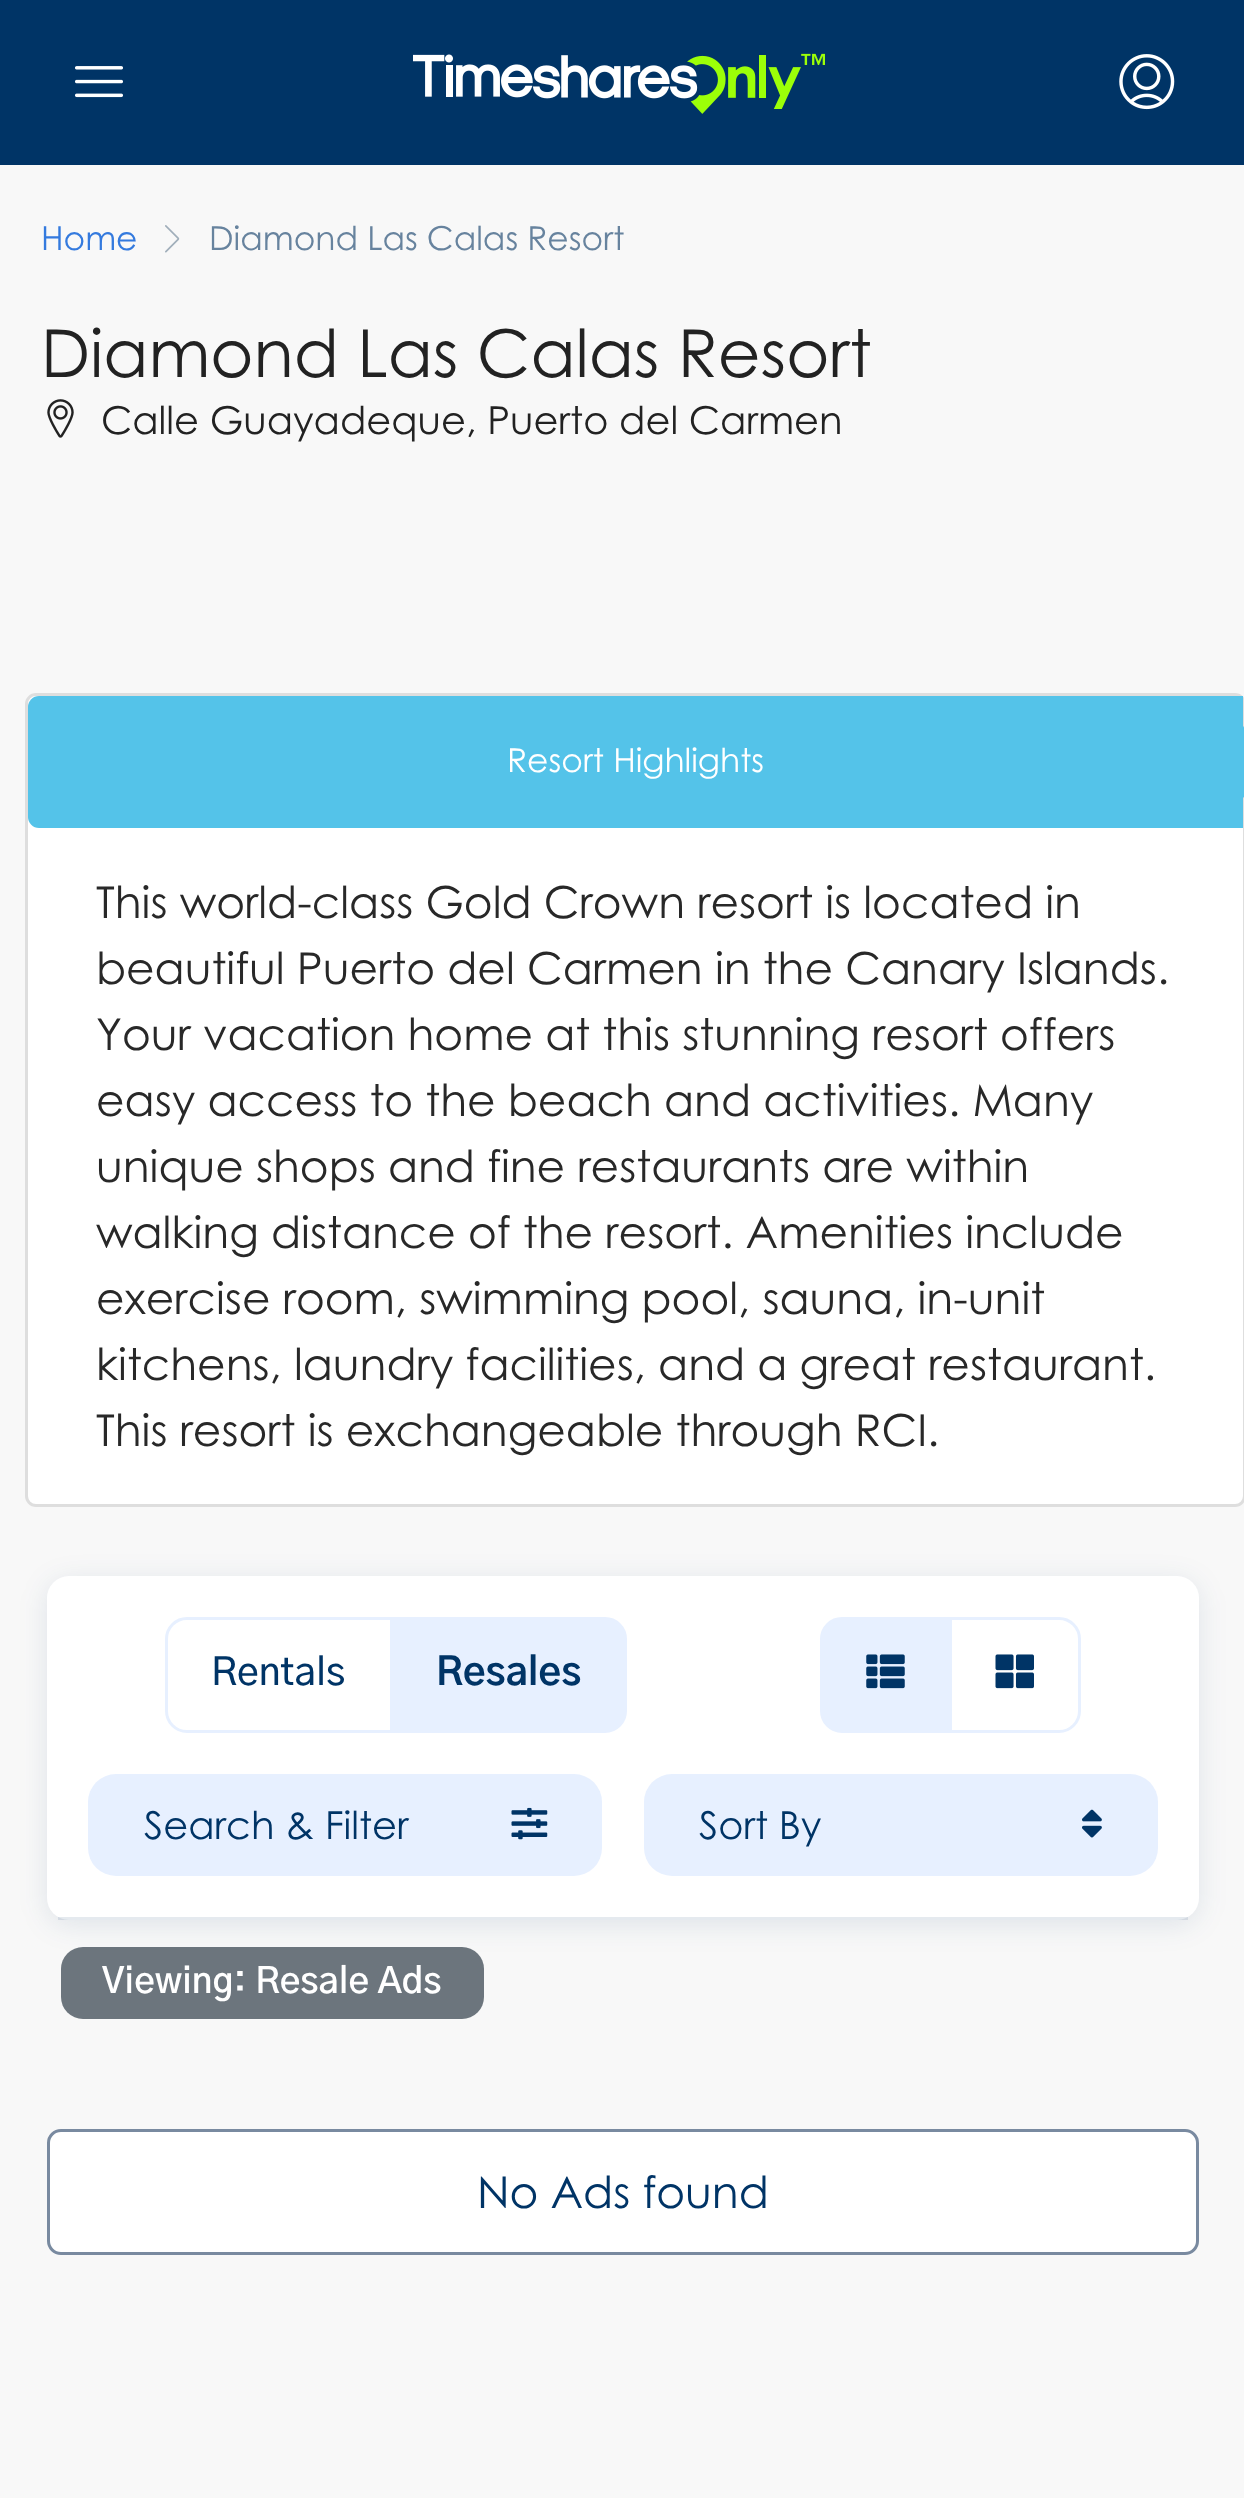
<!DOCTYPE html>
<meta charset="utf-8">
<style>body { margin: 0 } canvas { display: block }</style>
<canvas id="canvas" width="1244" height="2498"></canvas>
<img id="img1" src="img_01.png" hidden>
<img id="img2" src="img_02.png" hidden>
<img id="img3" src="img_03.png" hidden>
<img id="img4" src="img_04.png" hidden>
<img id="img5" src="img_05.png" hidden>
<img id="img6" src="img_06.png" hidden>
<img id="img7" src="img_07.png" hidden>
<img id="img8" src="img_08.png" hidden>
<img id="img9" src="img_09.png" hidden>
<script>
window.onload = function () {
	const canvas = document.getElementById("canvas");
	const ctx = canvas.getContext("2d");
	ctx.miterLimit = 4;
	ctx.fontKerning = "normal";
	function txt(s, x, y) {
		ctx.fillText(s, x, y);
	}
	function fill(x, y, w, h) {
		ctx.fillRect(x, y, w, h);
	}
	function round(x, y, w, h, r) {
		ctx.beginPath();
		ctx.roundRect(x, y, w, h, r);
		ctx.fill();
	}
	function img(id, x, y, w, h) {
		ctx.drawImage(document.getElementById(id), x, y, w, h);
	}

	ctx.fillStyle = "#F8F8F8";
	fill(0, 0, 1244, 2498);
	ctx.fillStyle = "#003466";
	fill(0, 0, 1244, 165);
	img("img1", 75, 66, 48, 32);
	img("img2", 413, 53, 412, 61);
	img("img3", 1119, 54, 56, 56);
	img("img4", 165, 225, 15, 28);
	img("img5", 47, 399, 27, 39);
	ctx.fillStyle = "#FFFFFF";
	ctx.beginPath();
	ctx.roundRect(26.5, 694.5, 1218, 811, 9.5);
	ctx.fill();
	ctx.strokeStyle = "#DEDEDE";
	ctx.lineWidth = 3;
	ctx.stroke();
	ctx.fillStyle = "#54C3E9";
	ctx.beginPath();
	ctx.roundRect(28, 696, 1215, 132, [11, 0, 0, 11]);
	ctx.fill();
	ctx.beginPath();
	ctx.moveTo(1243, 798);
	ctx.lineTo(1243, 726);
	ctx.lineTo(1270, 762);
	ctx.closePath();
	ctx.fill();
	ctx.fillStyle = "rgba(0, 52, 102, 0.1)";
	ctx.filter = "blur(14px)";
	ctx.beginPath();
	ctx.roundRect(47, 1581, 1152, 344, 22);
	ctx.fill();
	ctx.filter = "none";
	ctx.fillStyle = "#FFFFFF";
	round(47, 1576, 1152, 344, 22);
	ctx.fillStyle = "rgba(0, 52, 102, 0.1)";
	fill(58, 1917, 1130, 3);
	ctx.beginPath();
	ctx.roundRect(166.5, 1618.5, 225, 113, [20.5, 0, 0, 20.5]);
	ctx.strokeStyle = "#E7F0FF";
	ctx.stroke();
	ctx.fillStyle = "#E7F0FF";
	ctx.beginPath();
	ctx.roundRect(392.5, 1618.5, 233, 113, [0, 20.5, 20.5, 0]);
	ctx.fill();
	ctx.stroke();
	ctx.beginPath();
	ctx.roundRect(821.5, 1618.5, 129, 113, [20.5, 0, 0, 20.5]);
	ctx.fill();
	ctx.stroke();
	img("img6", 866, 1654, 39, 35);
	ctx.beginPath();
	ctx.roundRect(950.5, 1618.5, 129, 113, [0, 20.5, 20.5, 0]);
	ctx.stroke();
	img("img7", 995, 1654, 39, 35);
	round(88, 1774, 514, 102, 28);
	img("img8", 511, 1807, 37, 33);
	round(644, 1774, 514, 102, 28);
	img("img9", 1082, 1809, 20, 29);
	ctx.fillStyle = "#6C757D";
	round(61, 1947, 423, 72, 22);
	ctx.fillStyle = "#FFFFFF";
	ctx.beginPath();
	ctx.roundRect(48.5, 2130.5, 1149, 123, 12.5);
	ctx.fill();
	ctx.strokeStyle = "#798AA0";
	ctx.stroke();
	ctx.font = "33px Century Gothic";
	ctx.fillStyle = "#347ADE";
	txt("Home", 41, 250);
	ctx.fillStyle = "#67839E";
	txt("Diamond Las Calas Resort", 209, 250);
	ctx.font = "66px Century Gothic";
	ctx.fillStyle = "#222222";
	txt("Diamond Las Calas Resort", 41, 377);
	ctx.font = "38.5px Century Gothic";
	txt("Calle Guayadeque, Puerto del Carmen", 101, 434);
	ctx.font = "33px Century Gothic";
	ctx.fillStyle = "#FFFFFF";
	txt("Resort Highlights", 507, 772);
	ctx.font = "44px Century Gothic";
	ctx.fillStyle = "#282828";
	txt("This world-class Gold Crown resort is located in", 96, 918);
	txt("beautiful Puerto del Carmen in the Canary Islands.", 96, 984);
	txt("Your vacation home at this stunning resort offers", 96, 1050);
	txt("easy access to the beach and activities. Many", 96, 1116);
	txt("unique shops and fine restaurants are within", 96, 1182);
	txt("walking distance of the resort. Amenities include", 96, 1248);
	txt("exercise room, swimming pool, sauna, in-unit", 96, 1314);
	txt("kitchens, laundry facilities, and a great restaurant.", 96, 1380);
	txt("This resort is exchangeable through RCI.", 96, 1446);
	ctx.font = "500 38.5px 'Gothic A1'";
	ctx.fillStyle = "#003466";
	txt("Rentals", 211, 1685);
	ctx.font = "bold 38.5px 'Gothic A1'";
	txt("Resales", 436, 1685);
	ctx.font = "38.5px Century Gothic";
	txt("Search & Filter", 144, 1839);
	txt("Sort By", 699, 1839);
	ctx.font = "600 35.75px 'Gothic A1'";
	ctx.fillStyle = "#FFFFFF";
	txt("Viewing: Resale Ads", 102, 1993);
	ctx.font = "44px Century Gothic";
	ctx.fillStyle = "#003466";
	txt("No Ads found", 477, 2208);
};
</script>
